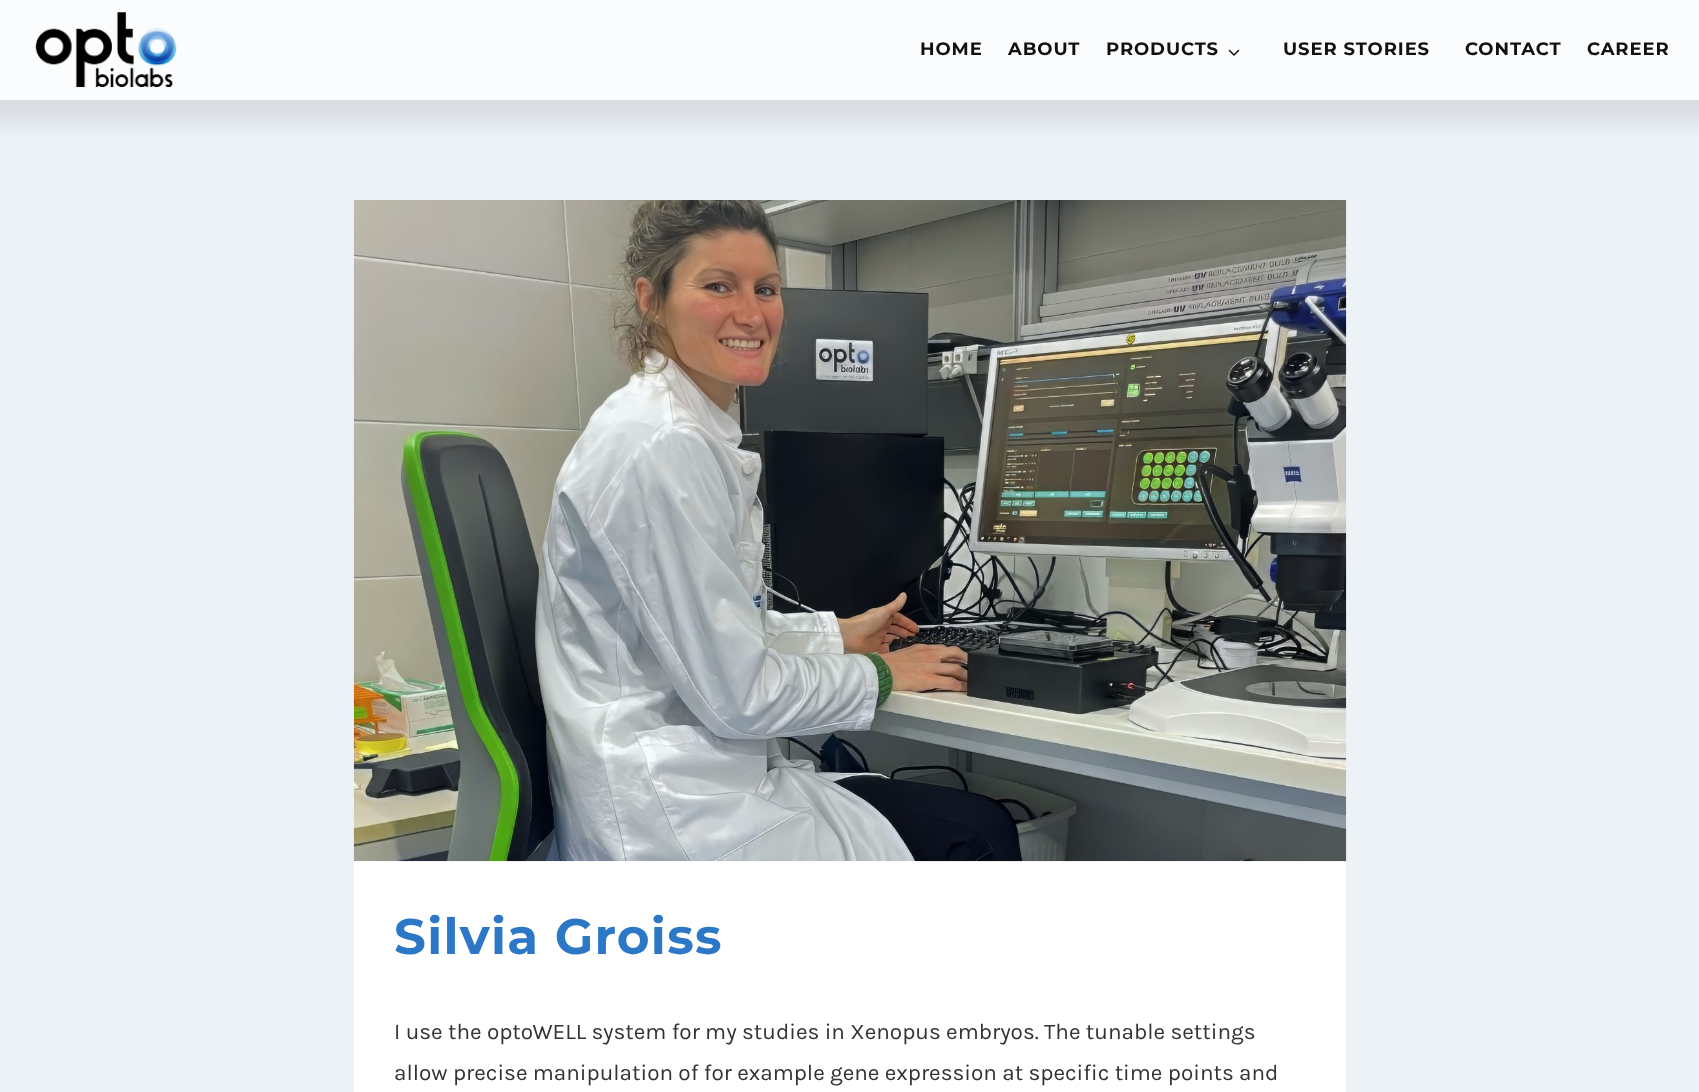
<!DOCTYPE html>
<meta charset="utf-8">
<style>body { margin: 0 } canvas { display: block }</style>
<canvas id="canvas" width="1699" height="1092"></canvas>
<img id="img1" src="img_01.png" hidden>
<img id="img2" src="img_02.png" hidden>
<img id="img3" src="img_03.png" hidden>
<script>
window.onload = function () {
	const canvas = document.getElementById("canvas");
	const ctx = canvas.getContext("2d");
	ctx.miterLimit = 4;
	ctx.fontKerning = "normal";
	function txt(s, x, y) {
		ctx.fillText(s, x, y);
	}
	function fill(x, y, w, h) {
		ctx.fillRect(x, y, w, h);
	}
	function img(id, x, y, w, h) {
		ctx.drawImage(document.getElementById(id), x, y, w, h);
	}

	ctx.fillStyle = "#EDF2F7";
	fill(0, 0, 1699, 1092);
	ctx.fillStyle = "rgba(0, 0, 0, 0.09)";
	ctx.filter = "blur(12.5px)";
	ctx.beginPath();
	ctx.rect(-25, -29, 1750, 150);
	ctx.fill();
	ctx.filter = "none";
	ctx.fillStyle = "#FAFCFD";
	fill(0, 0, 1699, 100);
	img("img1", 35, 12, 142, 76);
	img("img2", 1228, 49, 12, 7);
	ctx.fillStyle = "#FFFFFF";
	fill(354, 861, 992, 231);
	img("img3", 353, 200, 994, 662);
	ctx.letterSpacing = "0.9px";
	ctx.font = "100 18px Montserrat";
	ctx.fillStyle = "#111111";
	txt("HOME", 920, 55);
	txt("ABOUT", 1008, 55);
	txt("PRODUCTS", 1106, 55);
	txt("USER STORIES", 1283, 55);
	txt("CONTACT", 1465, 55);
	txt("CAREER", 1587, 55);
	ctx.letterSpacing = "1.25px";
	ctx.font = "100 50px Montserrat";
	ctx.fillStyle = "#2C78C7";
	txt("Silvia Groiss", 394, 954);
	ctx.letterSpacing = "0px";
	ctx.font = "22.5px Karla";
	ctx.fillStyle = "#333333";
	txt("I use the optoWELL system for my studies in Xenopus embryos. The tunable settings", 394, 1039);
	txt("allow precise manipulation of for example gene expression at specific time points and", 394, 1080);
};
</script>
